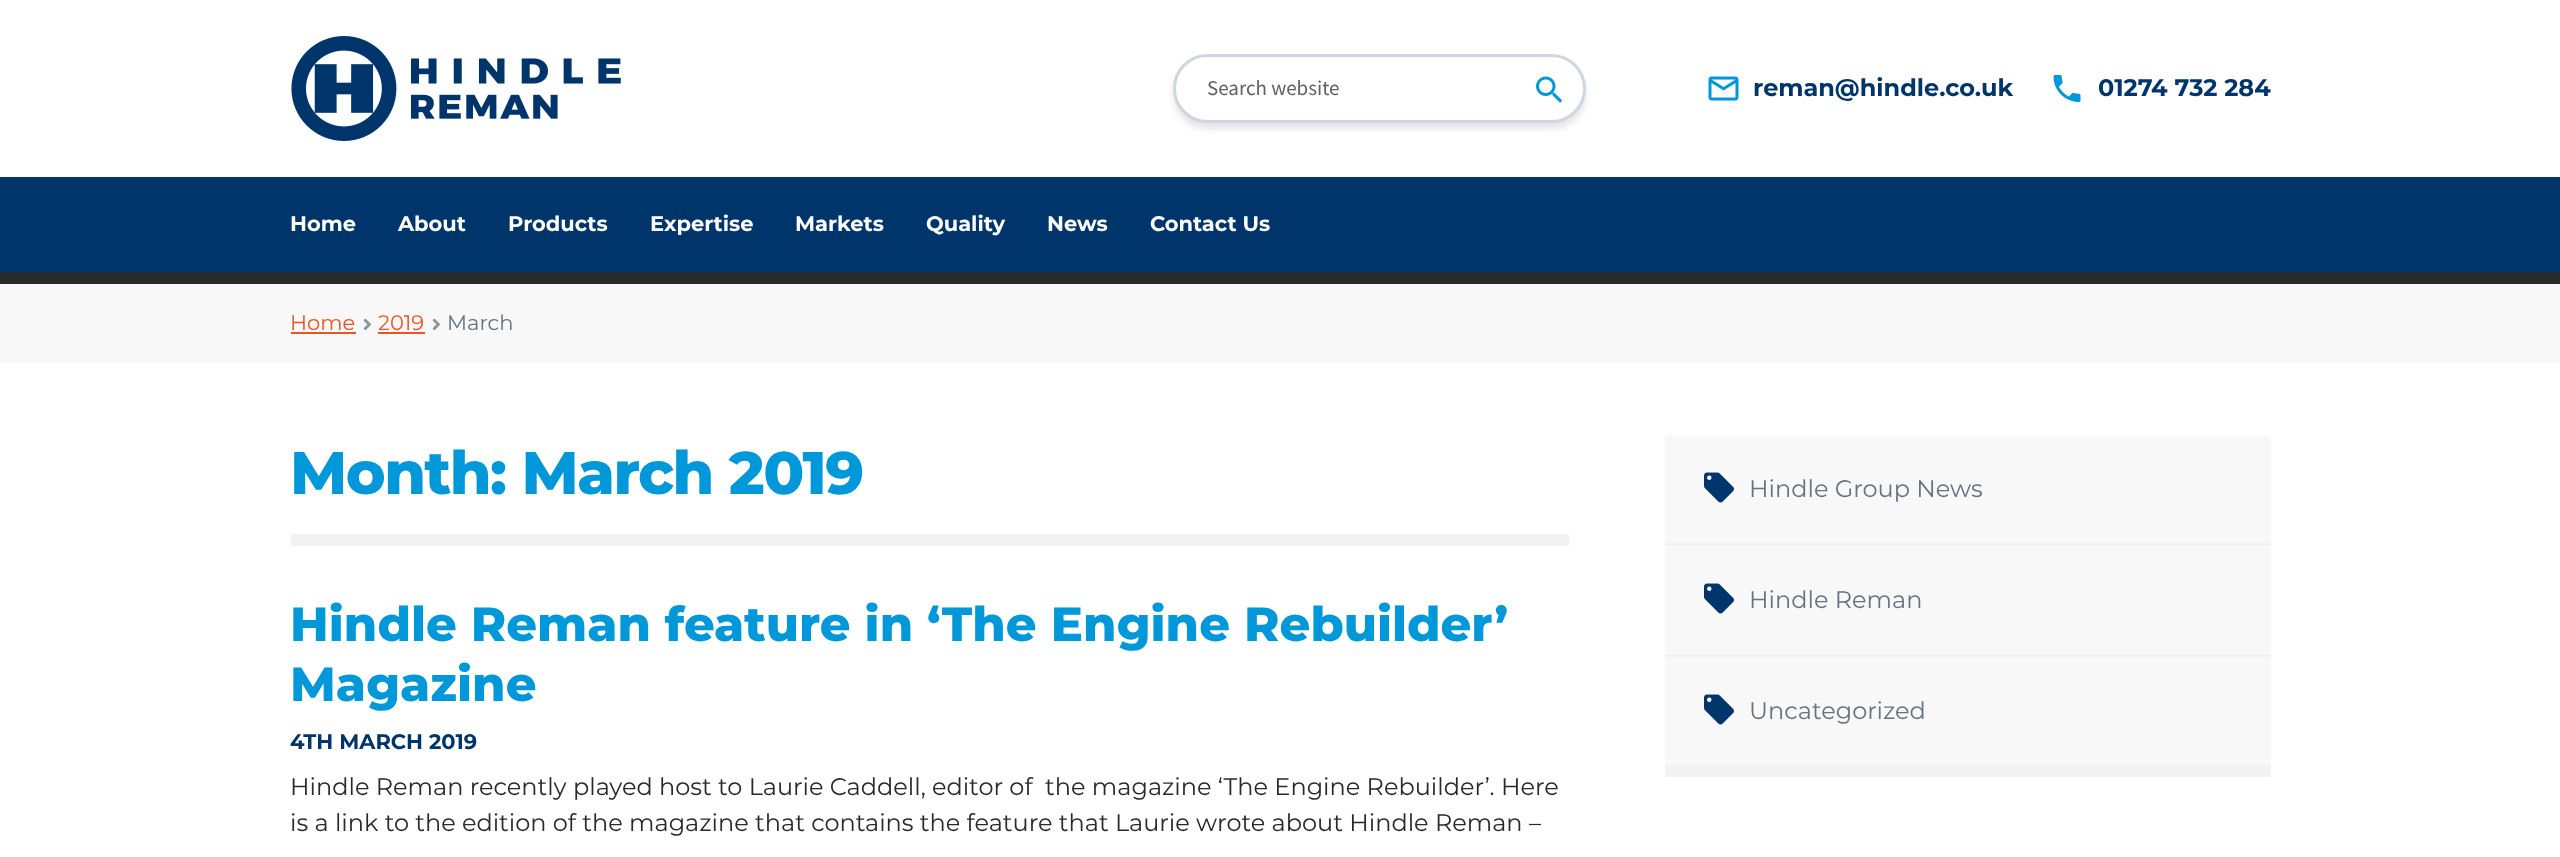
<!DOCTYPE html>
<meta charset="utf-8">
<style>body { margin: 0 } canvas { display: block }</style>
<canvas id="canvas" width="2560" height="857"></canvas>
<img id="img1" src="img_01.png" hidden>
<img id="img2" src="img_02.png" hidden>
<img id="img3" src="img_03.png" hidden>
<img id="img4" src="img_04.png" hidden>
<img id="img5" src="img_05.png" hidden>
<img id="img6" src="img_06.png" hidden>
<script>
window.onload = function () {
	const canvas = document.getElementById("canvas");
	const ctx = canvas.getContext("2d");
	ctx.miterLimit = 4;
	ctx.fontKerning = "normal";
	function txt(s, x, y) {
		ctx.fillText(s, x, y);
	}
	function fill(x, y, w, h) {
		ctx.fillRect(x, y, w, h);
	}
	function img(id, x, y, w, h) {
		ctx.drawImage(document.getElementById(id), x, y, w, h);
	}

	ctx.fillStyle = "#FFFFFF";
	fill(0, 0, 2560, 857);
	ctx.fillStyle = "#292929";
	fill(0, 272, 2560, 12);
	img("img1", 291, 36, 330, 105);
	ctx.fillStyle = "rgba(0, 0, 0, 0.1)";
	ctx.filter = "blur(3px)";
	ctx.beginPath();
	ctx.roundRect(1173, 60, 413, 69, 34.5);
	ctx.fill();
	ctx.filter = "none";
	ctx.fillStyle = "#FFFFFF";
	ctx.beginPath();
	ctx.roundRect(1174.5, 55.5, 410, 66, 33);
	ctx.fill();
	ctx.strokeStyle = "#CCD7E1";
	ctx.lineWidth = 3;
	ctx.stroke();
	img("img2", 1536, 76, 27, 27);
	img("img3", 1708, 76, 31, 25);
	img("img4", 2053, 75, 28, 27);
	ctx.fillStyle = "#00356B";
	fill(0, 177, 2560, 95);
	ctx.fillStyle = "#F8F8F8";
	fill(0, 284, 2560, 79);
	ctx.fillStyle = "#EB5424";
	fill(291, 332, 65, 2);
	img("img5", 363, 318, 8, 13);
	fill(378, 332, 47, 2);
	img("img5", 432, 318, 8, 13);
	ctx.fillStyle = "#F2F2F2";
	fill(291, 534, 1278, 12);
	fill(1665, 765, 606, 12);
	ctx.fillStyle = "#F8F8F8";
	fill(1665, 435, 606, 330);
	img("img6", 1704, 472, 30, 31);
	ctx.fillStyle = "#F2F2F2";
	fill(1665, 543, 606, 3);
	img("img6", 1704, 583, 30, 31);
	fill(1665, 654, 606, 3);
	img("img6", 1704, 694, 30, 31);
	ctx.font = "21px Source Sans Pro";
	ctx.fillStyle = "#616161";
	txt("Search website", 1207, 95);
	ctx.font = "bold 24px Montserrat";
	ctx.fillStyle = "#00356B";
	txt("reman@hindle.co.uk", 1753, 96);
	txt("01274 732 284", 2098, 96);
	ctx.font = "bold 21px Montserrat";
	ctx.fillStyle = "#FFFFFF";
	txt("Home", 290, 231);
	txt("About", 398, 231);
	txt("Products", 508, 231);
	txt("Expertise", 650, 231);
	txt("Markets", 795, 231);
	txt("Quality", 926, 231);
	txt("News", 1047, 231);
	txt("Contact Us", 1150, 231);
	ctx.font = "21px Montserrat";
	ctx.fillStyle = "#EB5424";
	txt("Home", 290, 330);
	txt("2019", 378, 330);
	ctx.fillStyle = "#647482";
	txt("March", 447, 330);
	ctx.letterSpacing = "-1.5px";
	ctx.font = "800 60px Montserrat";
	ctx.fillStyle = "#0198D9";
	txt("Month: March 2019", 290, 494);
	ctx.letterSpacing = "0px";
	ctx.font = "800 48px Montserrat";
	txt("Hindle Reman feature in ‘The Engine Rebuilder’", 290, 641);
	txt("Magazine", 290, 701);
	ctx.font = "bold 21px Montserrat";
	ctx.fillStyle = "#00356B";
	txt("4TH MARCH 2019", 290, 749);
	ctx.font = "24px Montserrat";
	ctx.fillStyle = "#292929";
	txt("Hindle Reman recently played host to Laurie Caddell, editor of  the magazine ‘The Engine Rebuilder’. Here", 290, 795);
	txt("is a link to the edition of the magazine that contains the feature that Laurie wrote about Hindle Reman –", 290, 831);
	ctx.fillStyle = "#647482";
	txt("Hindle Group News", 1749, 497);
	txt("Hindle Reman", 1749, 608);
	txt("Uncategorized", 1749, 719);
};
</script>
